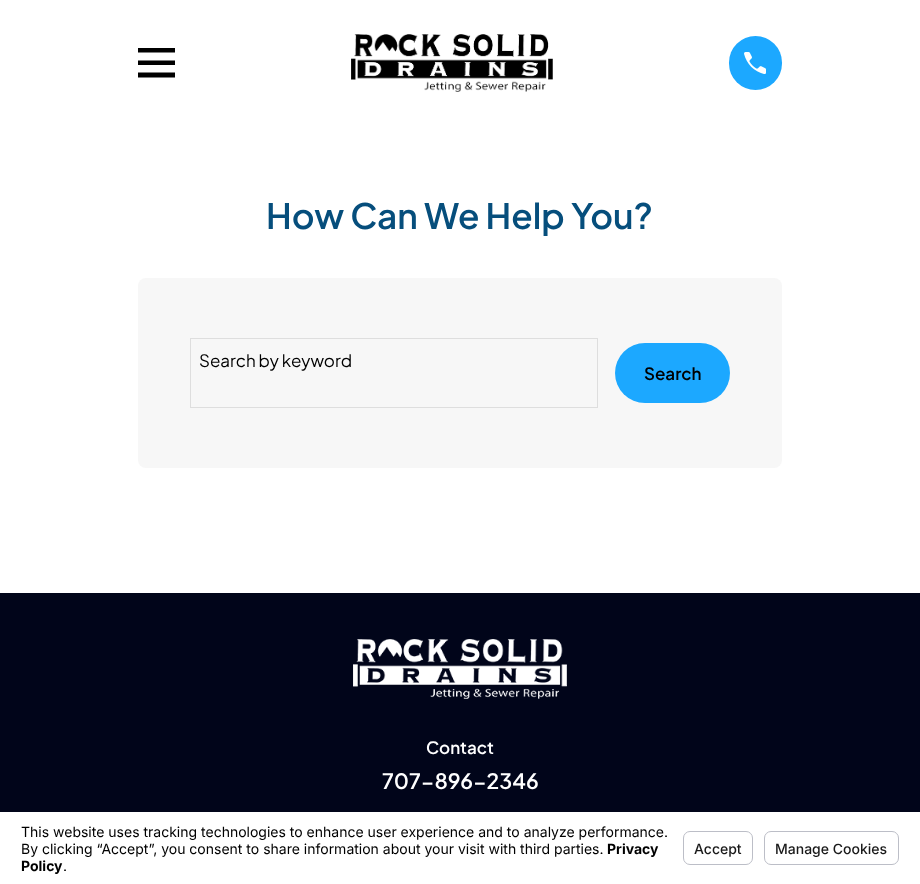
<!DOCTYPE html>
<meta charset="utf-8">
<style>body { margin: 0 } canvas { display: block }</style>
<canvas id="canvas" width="920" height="884"></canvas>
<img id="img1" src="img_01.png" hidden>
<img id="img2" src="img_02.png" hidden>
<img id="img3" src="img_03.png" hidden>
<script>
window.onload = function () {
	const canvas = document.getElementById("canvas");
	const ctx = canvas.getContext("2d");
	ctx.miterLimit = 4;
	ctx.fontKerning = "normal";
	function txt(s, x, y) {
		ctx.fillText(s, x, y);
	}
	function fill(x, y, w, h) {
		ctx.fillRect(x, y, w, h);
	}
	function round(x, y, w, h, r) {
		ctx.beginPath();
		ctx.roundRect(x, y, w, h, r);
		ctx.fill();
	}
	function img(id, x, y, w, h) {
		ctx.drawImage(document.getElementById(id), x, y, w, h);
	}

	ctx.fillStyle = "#FFFFFF";
	fill(0, 0, 920, 884);
	ctx.save();
	ctx.beginPath();
	ctx.rect(138, 44, 37, 37);
	ctx.clip();
	ctx.fillStyle = "#000000";
	ctx.beginPath();
	ctx.moveTo(138, 48);
	ctx.lineTo(138, 52.5);
	ctx.lineTo(175.5, 52.5);
	ctx.lineTo(175.5, 48);
	ctx.closePath();
	ctx.moveTo(138, 60.5);
	ctx.lineTo(138, 65);
	ctx.lineTo(175.5, 65);
	ctx.lineTo(175.5, 60.5);
	ctx.closePath();
	ctx.moveTo(138, 72.5);
	ctx.lineTo(138, 77.5);
	ctx.lineTo(175.5, 77.5);
	ctx.lineTo(175.5, 72.5);
	ctx.closePath();
	ctx.fill();
	ctx.restore();
	img("img1", 351, 34, 202, 58);
	ctx.fillStyle = "#1CA8FF";
	round(729, 36, 53, 54, 26.5);
	img("img2", 744, 52, 22, 22);
	ctx.fillStyle = "#F7F7F7";
	round(138, 278, 644, 190, 8);
	ctx.strokeStyle = "#DEDEDE";
	ctx.strokeRect(190.5, 338.5, 407, 69);
	ctx.fillStyle = "#1CA8FF";
	round(615, 343, 115, 60, 30);
	ctx.fillStyle = "#01051A";
	fill(0, 593, 920, 219);
	img("img3", 353, 639, 214, 60);
	ctx.beginPath();
	ctx.roundRect(683.5, 831.5, 69, 33, 6.5);
	ctx.strokeStyle = "#BCBEC7";
	ctx.stroke();
	ctx.beginPath();
	ctx.roundRect(764.5, 831.5, 134, 33, 6.5);
	ctx.stroke();
	ctx.font = "600 35px Plus Jakarta Sans";
	ctx.fillStyle = "#064E7C";
	txt("How Can We Help You?", 266, 229);
	ctx.font = "17px Plus Jakarta Sans";
	ctx.fillStyle = "#000000";
	txt("Search by keyword", 199, 367);
	ctx.font = "600 17px Plus Jakarta Sans";
	txt("Search", 644, 380);
	ctx.fillStyle = "#FFFFFF";
	txt("Contact", 426, 754);
	ctx.font = "600 21.25px Plus Jakarta Sans";
	txt("707-896-2346", 382, 789);
	ctx.font = "14px Inter";
	ctx.fillStyle = "#000000";
	txt("This website uses tracking technologies to enhance user experience and to analyze performance.", 21, 837);
	txt("By clicking “Accept”, you consent to share information about your visit with third parties.", 21, 854);
	ctx.font = "bold 14px Inter";
	txt("Privacy", 607, 854);
	txt("Policy", 21, 871);
	ctx.font = "14px Inter";
	txt(".", 63, 871);
	ctx.font = "500 14px Inter";
	ctx.fillStyle = "#191919";
	txt("Accept", 694, 854);
	txt("Manage Cookies", 775, 854);
};
</script>
